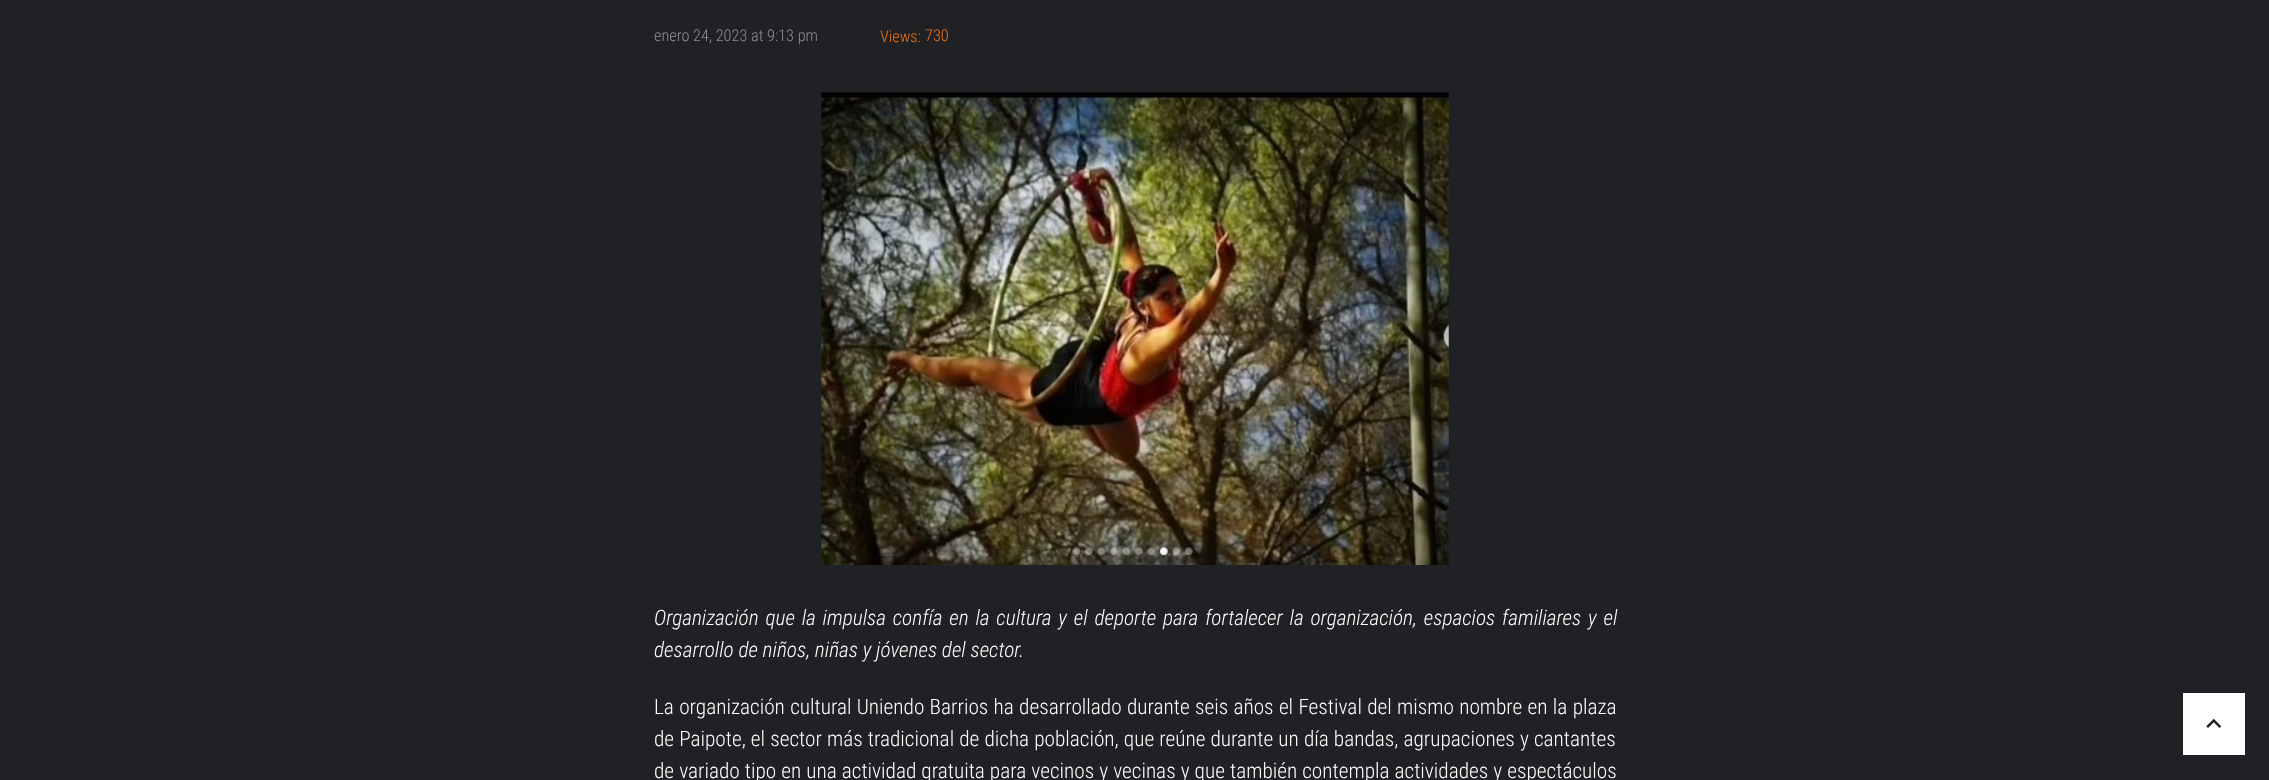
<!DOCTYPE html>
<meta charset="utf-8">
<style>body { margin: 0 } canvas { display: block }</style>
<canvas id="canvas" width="2269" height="780"></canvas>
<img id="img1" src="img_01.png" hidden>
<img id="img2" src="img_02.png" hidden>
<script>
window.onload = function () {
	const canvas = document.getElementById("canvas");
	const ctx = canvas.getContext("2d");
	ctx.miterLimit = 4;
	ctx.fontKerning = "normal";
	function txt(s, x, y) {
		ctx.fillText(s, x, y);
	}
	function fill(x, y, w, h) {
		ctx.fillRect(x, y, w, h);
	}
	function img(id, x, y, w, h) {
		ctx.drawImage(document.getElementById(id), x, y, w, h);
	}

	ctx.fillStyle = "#202124";
	fill(0, 0, 2269, 780);
	img("img1", 821, 92, 628, 473);
	ctx.fillStyle = "#FFFFFF";
	fill(2183, 693, 62, 62);
	img("img2", 2206, 718, 16, 10);
	ctx.font = "300 16.25px Roboto Condensed";
	ctx.fillStyle = "#8F9091";
	txt("enero 24, 2023 at 9:13 pm", 654, 41);
	ctx.fillStyle = "#F47512";
	txt("Views:", 880, 42);
	txt("730", 925, 41);
	ctx.wordSpacing = "2.1px";
	ctx.font = "italic 300 21.25px Roboto Condensed";
	ctx.fillStyle = "#FFFFFF";
	txt("Organización que la impulsa confía en la cultura y el deporte para fortalecer la organización, espacios familiares y el", 654, 625);
	ctx.wordSpacing = "0px";
	txt("desarrollo de niños, niñas y jóvenes del sector.", 654, 657);
	ctx.wordSpacing = "0.5px";
	ctx.font = "300 21.25px Roboto Condensed";
	txt("La organización cultural Uniendo Barrios ha desarrollado durante seis años el Festival del mismo nombre en la plaza", 654, 714);
	ctx.wordSpacing = "0.3px";
	txt("de Paipote, el sector más tradicional de dicha población, que reúne durante un día bandas, agrupaciones y cantantes", 654, 746);
	ctx.wordSpacing = "0.25px";
	txt("de variado tipo en una actividad gratuita para vecinos y vecinas y que también contempla actividades y espectáculos", 654, 778);
};
</script>
